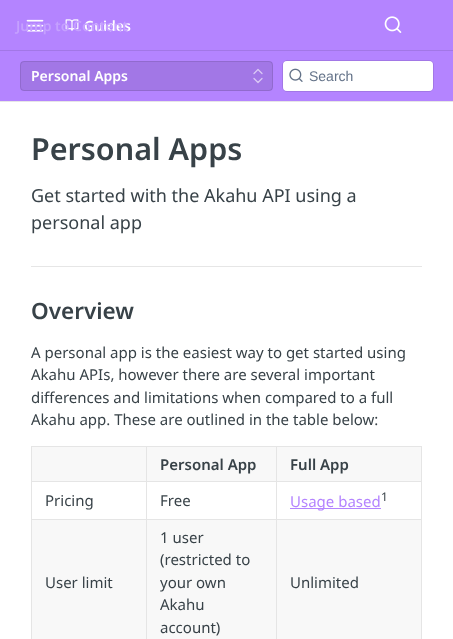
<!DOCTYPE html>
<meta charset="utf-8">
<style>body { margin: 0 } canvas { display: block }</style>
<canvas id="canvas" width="453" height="639"></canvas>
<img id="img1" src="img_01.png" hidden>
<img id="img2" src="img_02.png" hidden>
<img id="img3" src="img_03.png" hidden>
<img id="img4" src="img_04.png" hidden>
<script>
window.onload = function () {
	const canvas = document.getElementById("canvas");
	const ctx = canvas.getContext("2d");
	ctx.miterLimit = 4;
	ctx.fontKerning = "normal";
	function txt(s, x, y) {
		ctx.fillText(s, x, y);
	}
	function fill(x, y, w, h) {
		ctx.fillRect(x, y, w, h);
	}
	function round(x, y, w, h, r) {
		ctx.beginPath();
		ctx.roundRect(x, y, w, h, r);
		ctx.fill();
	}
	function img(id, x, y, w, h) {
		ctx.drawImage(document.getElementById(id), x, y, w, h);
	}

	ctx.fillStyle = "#FFFFFF";
	fill(0, 0, 453, 639);
	ctx.fillStyle = "#E6E6E6";
	fill(0, 101, 453, 1);
	ctx.fillStyle = "#B484FF";
	fill(0, 0, 453, 101);
	ctx.fillStyle = "#A277E6";
	fill(0, 50, 453, 1);
	img("img1", 384, 16, 18, 17);
	img("img2", 26, 19, 18, 13);
	img("img3", 65, 19, 14, 12);
	round(20, 61, 253, 30, 4);
	ctx.beginPath();
	ctx.roundRect(20.5, 61.5, 252, 29, 3.5);
	ctx.strokeStyle = "rgba(0, 0, 0, 0.1)";
	ctx.stroke();
	ctx.beginPath();
	ctx.moveTo(254, 78.5);
	ctx.lineTo(258, 82.5);
	ctx.lineTo(262, 78.5);
	ctx.moveTo(262, 73.5);
	ctx.lineTo(258, 69.5);
	ctx.lineTo(254, 73.5);
	ctx.strokeStyle = "#DAC9F5";
	ctx.lineWidth = 1.3;
	ctx.lineCap = "round";
	ctx.lineJoin = "round";
	ctx.stroke();
	ctx.beginPath();
	ctx.roundRect(282.5, 60.5, 151, 31, 4.5);
	ctx.strokeStyle = "#A277E6";
	ctx.lineWidth = 1;
	ctx.lineJoin = "miter";
	ctx.stroke();
	ctx.fillStyle = "#FFFFFF";
	round(283, 61, 150, 30, 4);
	img("img4", 289, 68, 14, 14);
	ctx.fillStyle = "#E6E6E6";
	fill(31, 266, 391, 1);
	ctx.fillStyle = "#E5E5E5";
	fill(31, 446, 391, 1);
	fill(421, 446, 1, 193);
	fill(31, 446, 1, 193);
	ctx.fillStyle = "#F8F8F8";
	fill(32, 447, 389, 34);
	ctx.fillStyle = "#E5E5E5";
	fill(276, 481, 146, 1);
	fill(31, 519, 391, 1);
	ctx.fillStyle = "#F8F8F8";
	fill(32, 520, 389, 119);
	ctx.fillStyle = "#E5E5E5";
	fill(276, 519, 1, 120);
	fill(276, 481, 1, 39);
	fill(146, 481, 131, 1);
	fill(146, 519, 1, 120);
	fill(146, 481, 1, 39);
	fill(31, 481, 116, 1);
	fill(146, 446, 1, 36);
	fill(276, 446, 1, 36);
	ctx.fillStyle = "#B484FF";
	fill(290, 508, 91, 1);
	ctx.font = "600 14px Noto Sans";
	ctx.fillStyle = "#FFFFFF";
	txt("Guides", 84, 31);
	ctx.fillStyle = "#C5A0FF";
	txt("Jump to Content", 16, 31);
	ctx.fillStyle = "#FFFFFF";
	txt("Personal Apps", 31, 81);
	ctx.font = "14px Liberation Sans";
	ctx.fillStyle = "#637288";
	txt("Search", 309, 81);
	ctx.font = "600 30.5px Noto Sans";
	ctx.fillStyle = "#384248";
	txt("Personal Apps", 31, 160);
	ctx.font = "18px Noto Sans";
	txt("Get started with the Akahu API using a", 31, 202);
	txt("personal app", 31, 229);
	ctx.font = "600 22.5px Noto Sans";
	txt("Overview", 31, 319);
	ctx.font = "15px Noto Sans";
	txt("A personal app is the easiest way to get started using", 31, 358);
	txt("Akahu APIs, however there are several important", 31, 380);
	txt("differences and limitations when compared to a full", 31, 403);
	txt("Akahu app. These are outlined in the table below:", 31, 425);
	ctx.font = "600 15px Noto Sans";
	txt("Personal App", 160, 470);
	txt("Full App", 290, 470);
	ctx.font = "15px Noto Sans";
	txt("Pricing", 45, 506);
	txt("Free", 160, 506);
	ctx.fillStyle = "#B484FF";
	txt("Usage based", 290, 507);
	ctx.font = "12px Noto Sans";
	ctx.fillStyle = "#384248";
	txt("1", 381, 501);
	ctx.font = "15px Noto Sans";
	txt("User limit", 45, 588);
	txt("1 user", 160, 543);
	txt("(restricted to", 160, 565);
	txt("your own", 160, 588);
	txt("Akahu", 160, 610);
	txt("account)", 160, 633);
	txt("Unlimited", 290, 588);
};
</script>
